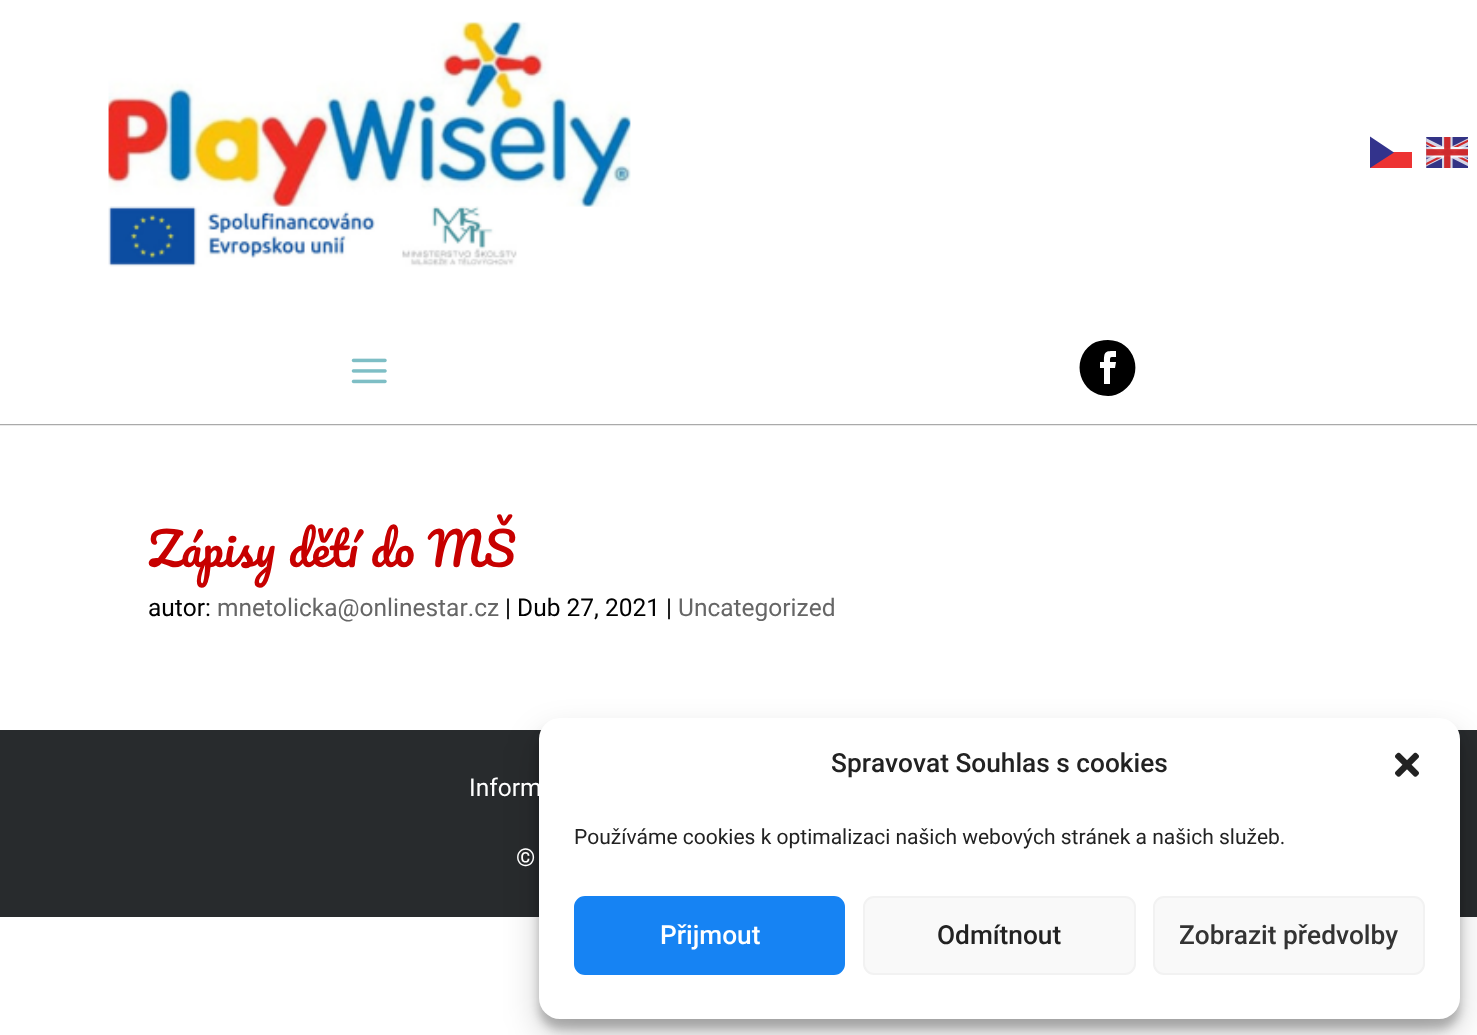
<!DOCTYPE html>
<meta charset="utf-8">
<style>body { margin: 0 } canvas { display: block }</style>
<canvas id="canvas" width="1477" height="1035"></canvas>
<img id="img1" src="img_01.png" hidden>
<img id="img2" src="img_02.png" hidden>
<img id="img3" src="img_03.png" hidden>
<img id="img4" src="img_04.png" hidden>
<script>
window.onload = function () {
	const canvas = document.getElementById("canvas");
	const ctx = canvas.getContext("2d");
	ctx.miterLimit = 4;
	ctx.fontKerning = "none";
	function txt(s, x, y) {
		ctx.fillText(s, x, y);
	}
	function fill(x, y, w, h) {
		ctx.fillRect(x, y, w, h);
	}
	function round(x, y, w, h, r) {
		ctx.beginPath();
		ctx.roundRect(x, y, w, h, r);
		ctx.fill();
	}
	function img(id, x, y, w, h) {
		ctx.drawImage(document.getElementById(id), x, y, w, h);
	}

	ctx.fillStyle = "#FFFFFF";
	fill(0, 0, 1477, 1035);
	ctx.fillStyle = "#000000";
	ctx.filter = "blur(1px)";
	ctx.beginPath();
	ctx.rect(-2, -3, 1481, 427);
	ctx.fill();
	ctx.filter = "none";
	ctx.fillStyle = "#FFFFFF";
	fill(0, 0, 1477, 424);
	img("img1", 108, 21, 523, 246);
	ctx.fillStyle = "#ED3333";
	fill(1370, 152, 42, 16);
	ctx.fillStyle = "#33338C";
	ctx.beginPath();
	ctx.moveTo(1370, 136.5);
	ctx.lineTo(1394, 152.5);
	ctx.lineTo(1370, 168);
	ctx.closePath();
	ctx.fill();
	img("img2", 1426, 137, 42, 31);
	img("img3", 351, 358, 36, 26);
	ctx.fillStyle = "#000000";
	ctx.beginPath();
	ctx.moveTo(1108, 340);
	ctx.bezierCurveTo(1102, 340, 1097, 341, 1092, 344);
	ctx.bezierCurveTo(1069, 360, 1080, 396, 1108, 396);
	ctx.bezierCurveTo(1113, 396, 1119, 394, 1123, 391);
	ctx.bezierCurveTo(1146, 375, 1135, 340, 1108, 340);
	ctx.closePath();
	ctx.moveTo(1115, 368);
	ctx.lineTo(1110, 368);
	ctx.lineTo(1110, 384);
	ctx.lineTo(1104, 384);
	ctx.lineTo(1104, 368);
	ctx.lineTo(1100, 368);
	ctx.lineTo(1100, 362);
	ctx.lineTo(1104, 362);
	ctx.bezierCurveTo(1104, 351, 1105, 351, 1116, 351);
	ctx.lineTo(1116, 357);
	ctx.bezierCurveTo(1110, 357, 1110, 356, 1110, 362);
	ctx.lineTo(1116, 362);
	ctx.closePath();
	ctx.fill();
	ctx.fillStyle = "#282B2D";
	fill(0, 730, 1477, 187);
	ctx.fillStyle = "rgba(0, 0, 0, 0.23)";
	ctx.filter = "blur(5px)";
	ctx.beginPath();
	ctx.roundRect(539, 728, 921, 301, 21);
	ctx.fill();
	ctx.filter = "none";
	ctx.fillStyle = "rgba(0, 0, 0, 0.19)";
	ctx.filter = "blur(17.5px)";
	ctx.beginPath();
	ctx.roundRect(539, 735, 921, 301, 21);
	ctx.fill();
	ctx.filter = "none";
	ctx.fillStyle = "#FFFFFF";
	round(539, 718, 921, 301, 21);
	img("img4", 1395, 752, 24, 25);
	ctx.fillStyle = "#1683F3";
	ctx.beginPath();
	ctx.roundRect(575, 897, 269, 77, 10);
	ctx.fill();
	ctx.strokeStyle = "#1683F3";
	ctx.lineWidth = 2;
	ctx.stroke();
	ctx.fillStyle = "#F9F9F9";
	ctx.beginPath();
	ctx.roundRect(864, 897, 271, 77, 10);
	ctx.fill();
	ctx.strokeStyle = "#F2F2F2";
	ctx.stroke();
	ctx.beginPath();
	ctx.roundRect(1154, 897, 270, 77, 10);
	ctx.fill();
	ctx.stroke();
	ctx.wordSpacing = "1px";
	ctx.font = "45.5px Pacifico";
	ctx.fillStyle = "#C70000";
	txt("Zápisy dětí do MŠ", 148, 567);
	ctx.wordSpacing = "0px";
	ctx.font = "24.5px Roboto";
	ctx.fillStyle = "#000000";
	txt("autor:", 148, 616);
	ctx.fillStyle = "#666666";
	txt("mnetolicka@onlinestar.cz", 217, 616);
	ctx.fillStyle = "#000000";
	txt("| Dub 27, 2021 |", 505, 616);
	ctx.fillStyle = "#666666";
	txt("Uncategorized", 678, 616);
	ctx.fillStyle = "#FFFFFF";
	txt("Inform", 469, 796);
	txt("©", 516, 866);
	ctx.font = "500 26.25px Roboto";
	ctx.fillStyle = "#222222";
	txt("Spravovat Souhlas s cookies", 831, 772);
	ctx.font = "21px Roboto";
	txt("Používáme cookies k optimalizaci našich webových stránek a našich služeb.", 574, 844);
	ctx.font = "500 26.25px Roboto";
	ctx.fillStyle = "#FFFFFF";
	txt("Přijmout", 660, 944);
	ctx.fillStyle = "#222222";
	txt("Odmítnout", 937, 944);
	ctx.fillStyle = "#333333";
	txt("Zobrazit předvolby", 1179, 944);
};
</script>
